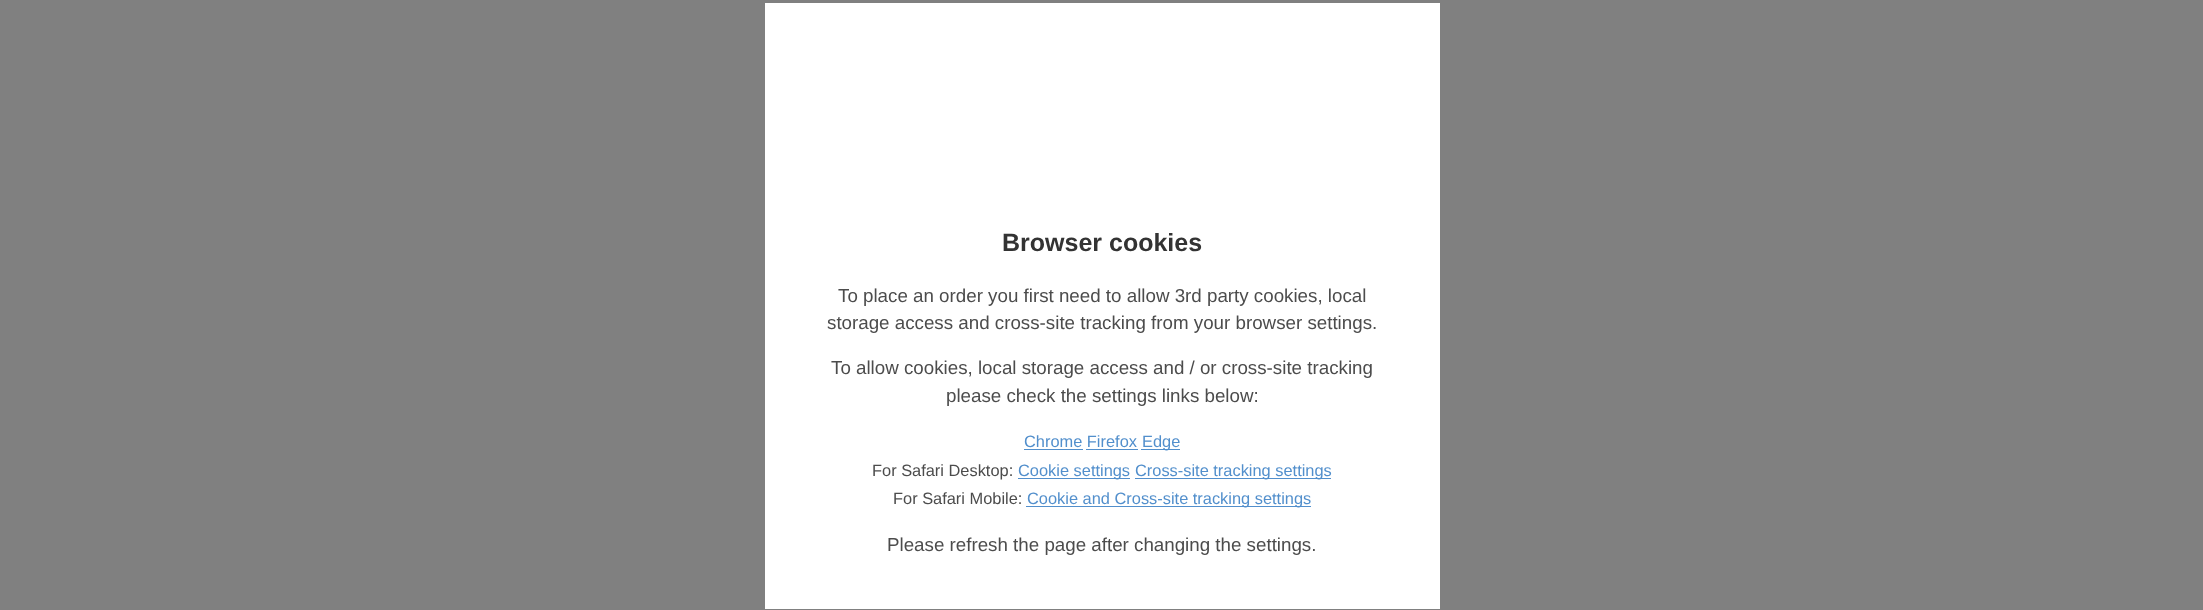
<!DOCTYPE html>
<meta charset="utf-8">
<style>body { margin: 0 } canvas { display: block }</style>
<canvas id="canvas" width="2203" height="610"></canvas>
<script>
window.onload = function () {
	const canvas = document.getElementById("canvas");
	const ctx = canvas.getContext("2d");
	ctx.miterLimit = 4;
	ctx.fontKerning = "normal";
	function txt(s, x, y) {
		ctx.fillText(s, x, y);
	}
	function fill(x, y, w, h) {
		ctx.fillRect(x, y, w, h);
	}

	ctx.fillStyle = "#808080";
	fill(0, 0, 2203, 610);
	ctx.fillStyle = "#FFFFFF";
	fill(765, 3, 675, 606);
	ctx.fillStyle = "#528FCC";
	fill(1024, 449, 59, 1);
	fill(1086, 449, 52, 1);
	fill(1141, 449, 39, 1);
	fill(1018, 478, 112, 1);
	fill(1135, 478, 196, 1);
	fill(1026, 506, 285, 1);
	ctx.font = "bold 25px Liberation Sans";
	ctx.fillStyle = "#333333";
	txt("Browser cookies", 1002, 251);
	ctx.font = "18.75px Liberation Sans";
	ctx.fillStyle = "#4C4C4C";
	txt("To place an order you first need to allow 3rd party cookies, local", 838, 302);
	txt("storage access and cross-site tracking from your browser settings.", 827, 329);
	txt("To allow cookies, local storage access and / or cross-site tracking", 831, 374);
	txt("please check the settings links below:", 946, 402);
	ctx.font = "16.4px Liberation Sans";
	ctx.fillStyle = "#528FCC";
	txt("Chrome Firefox", 1024, 447);
	txt("Edge", 1142, 447);
	ctx.fillStyle = "#4C4C4C";
	txt("For Safari Desktop:", 872, 476);
	ctx.fillStyle = "#528FCC";
	txt("Cookie settings", 1018, 476);
	txt("Cross-site tracking settings", 1135, 476);
	ctx.fillStyle = "#4C4C4C";
	txt("For Safari Mobile:", 893, 504);
	ctx.fillStyle = "#528FCC";
	txt("Cookie and Cross-site tracking settings", 1027, 504);
	ctx.font = "18.75px Liberation Sans";
	ctx.fillStyle = "#4C4C4C";
	txt("Please refresh the page after changing the settings.", 887, 551);
};
</script>
